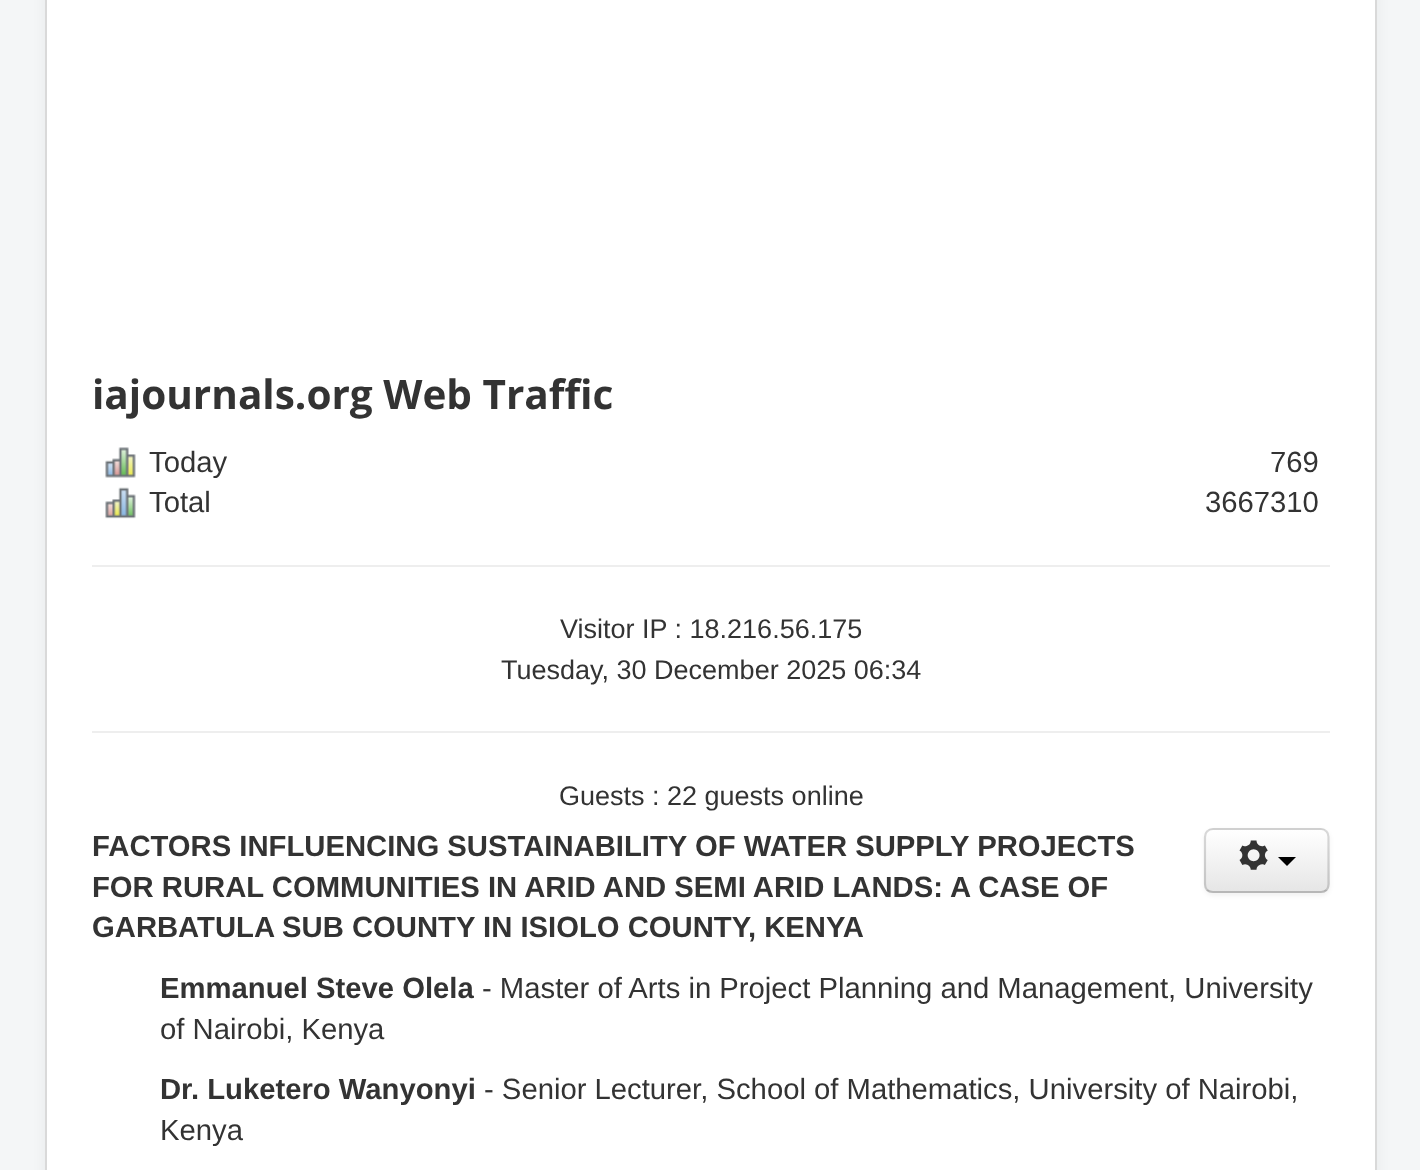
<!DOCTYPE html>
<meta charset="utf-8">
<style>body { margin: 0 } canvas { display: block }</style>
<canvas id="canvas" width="1420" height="1170"></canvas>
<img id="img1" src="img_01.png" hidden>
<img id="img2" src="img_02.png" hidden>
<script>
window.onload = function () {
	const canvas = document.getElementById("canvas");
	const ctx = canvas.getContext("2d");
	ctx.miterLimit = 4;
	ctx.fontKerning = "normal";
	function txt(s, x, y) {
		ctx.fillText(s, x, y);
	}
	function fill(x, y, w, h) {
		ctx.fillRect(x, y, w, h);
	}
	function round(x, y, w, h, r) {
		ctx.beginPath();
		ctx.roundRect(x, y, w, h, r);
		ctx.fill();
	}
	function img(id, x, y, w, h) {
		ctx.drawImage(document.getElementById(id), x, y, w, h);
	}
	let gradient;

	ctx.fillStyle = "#F4F6F7";
	fill(0, 0, 1420, 1170);
	ctx.fillStyle = "rgba(0, 0, 0, 0.05)";
	ctx.filter = "blur(7px)";
	ctx.beginPath();
	ctx.roundRect(45, -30, 1332, 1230, 9);
	ctx.fill();
	ctx.filter = "none";
	ctx.fillStyle = "#FFFFFF";
	ctx.beginPath();
	ctx.rect(46, -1, 1330, 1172);
	ctx.fill();
	ctx.strokeStyle = "#D9D9D9";
	ctx.lineWidth = 2;
	ctx.stroke();
	img("img1", 105, 447, 31, 31);
	img("img2", 105, 487, 31, 32);
	ctx.fillStyle = "#EEEEEE";
	fill(92, 565, 1238, 2);
	fill(92, 731, 1238, 2);
	ctx.fillStyle = "rgba(0, 0, 0, 0.05)";
	ctx.filter = "blur(2px)";
	ctx.beginPath();
	ctx.roundRect(1204, 830, 126, 66, 9);
	ctx.fill();
	ctx.filter = "none";
	ctx.fillStyle = "#F5F5F5";
	round(1204, 828, 126, 65, 9);
	ctx.save();
	ctx.beginPath();
	ctx.roundRect(1204, 828, 126, 65, 9);
	ctx.clip();
	gradient = ctx.createLinearGradient(1267, 830, 1267, 891);
	gradient.addColorStop(0, "#FFFFFF");
	gradient.addColorStop(1, "#E6E6E6");
	ctx.fillStyle = gradient;
	fill(1204, 830, 126, 61);
	ctx.restore();
	ctx.beginPath();
	ctx.moveTo(1326.5, 890);
	ctx.bezierCurveTo(1325, 891.5, 1323, 892, 1321, 892);
	ctx.lineTo(1213, 892);
	ctx.bezierCurveTo(1210.5, 892, 1208.5, 891.5, 1207, 890);
	ctx.strokeStyle = "rgba(0, 0, 0, 0.25)";
	ctx.lineWidth = 2.2;
	ctx.stroke();
	ctx.beginPath();
	ctx.moveTo(1207, 890);
	ctx.bezierCurveTo(1205.5, 888.5, 1205, 886.5, 1205, 884);
	ctx.lineTo(1205, 837);
	ctx.bezierCurveTo(1205, 835, 1205.5, 833, 1207, 831.5);
	ctx.bezierCurveTo(1208.5, 830, 1210.5, 829, 1213, 829);
	ctx.lineTo(1321, 829);
	ctx.bezierCurveTo(1323, 829, 1325, 830, 1326.5, 831.5);
	ctx.bezierCurveTo(1328, 833, 1328.5, 835, 1328.5, 837);
	ctx.lineTo(1328.5, 884);
	ctx.bezierCurveTo(1328.5, 886.5, 1328, 888.5, 1326.5, 890);
	ctx.strokeStyle = "rgba(0, 0, 0, 0.15)";
	ctx.stroke();
	ctx.fillStyle = "#000000";
	ctx.beginPath();
	ctx.moveTo(1278, 857);
	ctx.lineTo(1296, 857);
	ctx.lineTo(1287, 866);
	ctx.closePath();
	ctx.fill();
	ctx.font = "bold 40.5px Open Sans";
	ctx.fillStyle = "#333333";
	txt("iajournals.org Web Traffic", 92, 409);
	ctx.font = "29.25px Liberation Sans";
	txt("Today", 149, 472);
	txt("769", 1270, 472);
	txt("Total", 149, 512);
	txt("3667310", 1205, 512);
	ctx.font = "27px Liberation Sans";
	txt("Visitor IP : 18.216.56.175", 560, 638);
	txt("Tuesday, 30 December 2025 06:34", 501, 679);
	txt("Guests : 22 guests online", 559, 805);
	ctx.font = "bold 29.25px Liberation Sans";
	txt("FACTORS INFLUENCING SUSTAINABILITY OF WATER SUPPLY PROJECTS", 92, 856);
	txt("FOR RURAL COMMUNITIES IN ARID AND SEMI ARID LANDS: A CASE OF", 92, 897);
	txt("GARBATULA SUB COUNTY IN ISIOLO COUNTY, KENYA", 92, 937);
	ctx.font = "29.25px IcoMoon";
	txt("8", 1239, 868);
	ctx.font = "bold 29.25px Liberation Sans";
	txt("Emmanuel Steve Olela", 160, 998);
	ctx.font = "29.25px Liberation Sans";
	txt("- Master of Arts in Project Planning and Management, University", 482, 998);
	txt("of Nairobi, Kenya", 160, 1039);
	ctx.font = "bold 29.25px Liberation Sans";
	txt("Dr. Luketero Wanyonyi", 160, 1099);
	ctx.font = "29.25px Liberation Sans";
	txt("- Senior Lecturer, School of Mathematics, University of Nairobi,", 484, 1099);
	txt("Kenya", 160, 1140);
};
</script>
